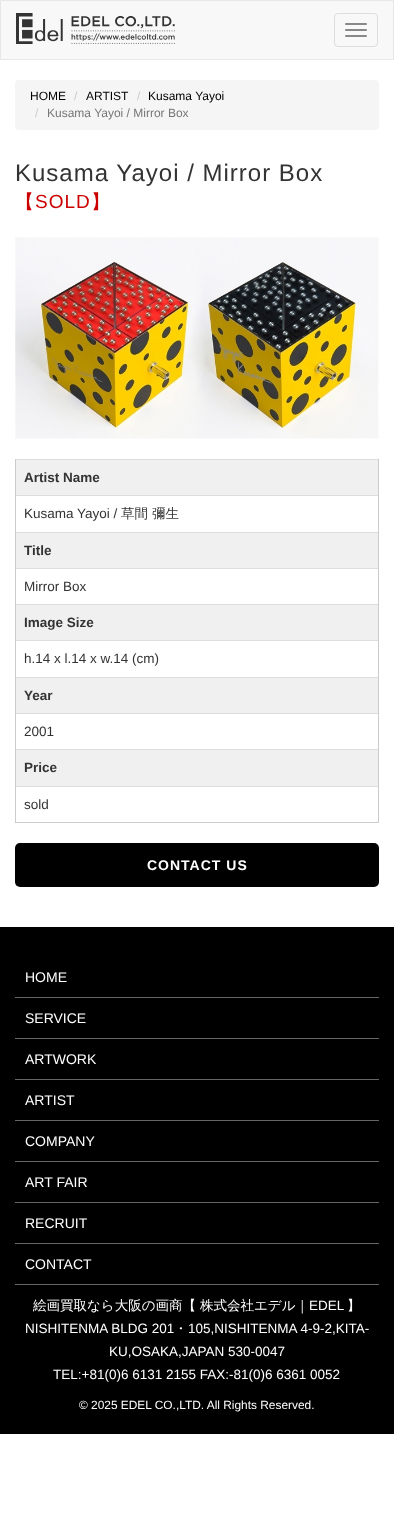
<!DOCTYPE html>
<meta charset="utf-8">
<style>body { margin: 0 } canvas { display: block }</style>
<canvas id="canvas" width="394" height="1523"></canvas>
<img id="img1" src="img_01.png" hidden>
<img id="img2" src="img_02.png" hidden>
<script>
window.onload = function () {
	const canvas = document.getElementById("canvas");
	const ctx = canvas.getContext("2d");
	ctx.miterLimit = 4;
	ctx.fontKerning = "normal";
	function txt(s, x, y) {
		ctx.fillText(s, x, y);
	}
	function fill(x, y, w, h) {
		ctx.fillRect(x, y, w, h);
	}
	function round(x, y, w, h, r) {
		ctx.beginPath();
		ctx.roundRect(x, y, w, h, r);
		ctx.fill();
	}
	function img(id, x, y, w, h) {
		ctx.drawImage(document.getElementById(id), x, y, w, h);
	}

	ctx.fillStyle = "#FFFFFF";
	fill(0, 0, 394, 1523);
	ctx.fillStyle = "#F8F8F8";
	ctx.beginPath();
	ctx.rect(0.5, 0.5, 393, 59);
	ctx.fill();
	ctx.strokeStyle = "#E7E7E7";
	ctx.stroke();
	img("img1", 16, 13, 159, 31);
	ctx.beginPath();
	ctx.roundRect(334.5, 13.5, 43, 33, 3.5);
	ctx.strokeStyle = "#DDDDDD";
	ctx.stroke();
	ctx.fillStyle = "#888888";
	round(345, 23, 22, 2, 1);
	round(345, 29, 22, 2, 1);
	round(345, 35, 22, 2, 1);
	ctx.fillStyle = "#F5F5F5";
	round(15, 80, 364, 50, 4);
	img("img2", 15, 237, 364, 202);
	ctx.fillStyle = "#CCCCCC";
	fill(15, 822, 364, 1);
	ctx.fillStyle = "#F0F0F0";
	fill(16, 460, 362, 35);
	ctx.fillStyle = "#DDDDDD";
	fill(15, 459, 364, 1);
	ctx.fillStyle = "#CCCCCC";
	fill(378, 459, 1, 36);
	fill(15, 459, 1, 36);
	ctx.fillStyle = "#DDDDDD";
	fill(15, 495, 364, 1);
	ctx.fillStyle = "#CCCCCC";
	fill(378, 495, 1, 37);
	fill(15, 495, 1, 37);
	ctx.fillStyle = "#F0F0F0";
	fill(16, 533, 362, 35);
	ctx.fillStyle = "#DDDDDD";
	fill(15, 532, 364, 1);
	ctx.fillStyle = "#CCCCCC";
	fill(378, 532, 1, 36);
	fill(15, 532, 1, 36);
	ctx.fillStyle = "#DDDDDD";
	fill(15, 568, 364, 1);
	ctx.fillStyle = "#CCCCCC";
	fill(378, 568, 1, 36);
	fill(15, 568, 1, 36);
	ctx.fillStyle = "#F0F0F0";
	fill(16, 605, 362, 35);
	ctx.fillStyle = "#DDDDDD";
	fill(15, 604, 364, 1);
	ctx.fillStyle = "#CCCCCC";
	fill(378, 604, 1, 36);
	fill(15, 604, 1, 36);
	ctx.fillStyle = "#DDDDDD";
	fill(15, 640, 364, 1);
	ctx.fillStyle = "#CCCCCC";
	fill(378, 640, 1, 37);
	fill(15, 640, 1, 37);
	ctx.fillStyle = "#F0F0F0";
	fill(16, 678, 362, 35);
	ctx.fillStyle = "#DDDDDD";
	fill(15, 677, 364, 1);
	ctx.fillStyle = "#CCCCCC";
	fill(378, 677, 1, 36);
	fill(15, 677, 1, 36);
	ctx.fillStyle = "#DDDDDD";
	fill(15, 713, 364, 1);
	ctx.fillStyle = "#CCCCCC";
	fill(378, 713, 1, 36);
	fill(15, 713, 1, 36);
	ctx.fillStyle = "#F0F0F0";
	fill(16, 750, 362, 36);
	ctx.fillStyle = "#DDDDDD";
	fill(15, 749, 364, 1);
	ctx.fillStyle = "#CCCCCC";
	fill(378, 749, 1, 37);
	fill(15, 749, 1, 37);
	ctx.fillStyle = "#DDDDDD";
	fill(15, 786, 364, 1);
	ctx.fillStyle = "#CCCCCC";
	fill(378, 786, 1, 36);
	fill(15, 786, 1, 36);
	ctx.fillStyle = "#000000";
	round(15, 843, 364, 44, 5);
	fill(0, 927, 394, 507);
	ctx.fillStyle = "#666666";
	fill(15, 997, 364, 1);
	fill(15, 1038, 364, 1);
	fill(15, 1079, 364, 1);
	fill(15, 1120, 364, 1);
	fill(15, 1161, 364, 1);
	fill(15, 1202, 364, 1);
	fill(15, 1243, 364, 1);
	fill(15, 1284, 364, 1);
	ctx.font = "12px Liberation Sans";
	ctx.fillStyle = "#000000";
	txt("HOME", 30, 100);
	ctx.fillStyle = "#CCCCCC";
	txt("/", 74, 100);
	ctx.fillStyle = "#000000";
	txt("ARTIST", 86, 100);
	ctx.fillStyle = "#CCCCCC";
	txt("/", 137, 100);
	ctx.fillStyle = "#000000";
	txt("Kusama Yayoi", 148, 100);
	ctx.fillStyle = "#CCCCCC";
	txt("/", 35, 117);
	ctx.fillStyle = "#777777";
	txt("Kusama Yayoi / Mirror Box", 47, 117);
	ctx.letterSpacing = "1px";
	ctx.font = "24px Liberation Sans";
	ctx.fillStyle = "#333333";
	txt("Kusama Yayoi / Mirror Box", 15, 181);
	ctx.font = "500 19px WenQuanYi Zen Hei";
	ctx.fillStyle = "#CC0000";
	txt("【", 15, 208);
	ctx.font = "19px Liberation Sans";
	txt("SOLD", 35, 208);
	ctx.font = "500 19px WenQuanYi Zen Hei";
	txt("】", 91, 208);
	ctx.letterSpacing = "0px";
	ctx.font = "bold 13.5px Liberation Sans";
	ctx.fillStyle = "#333333";
	txt("Artist Name", 24, 482);
	ctx.font = "13.5px Liberation Sans";
	txt("Kusama Yayoi /", 24, 518);
	ctx.font = "500 13.5px WenQuanYi Zen Hei";
	txt("草間 彌生", 121, 518);
	ctx.font = "bold 13.5px Liberation Sans";
	txt("Title", 24, 555);
	ctx.font = "13.5px Liberation Sans";
	txt("Mirror Box", 24, 591);
	ctx.font = "bold 13.5px Liberation Sans";
	txt("Image Size", 24, 627);
	ctx.font = "13.5px Liberation Sans";
	txt("h.14 x l.14 x w.14 (cm)", 24, 663);
	ctx.font = "bold 13.5px Liberation Sans";
	txt("Year", 24, 700);
	ctx.font = "13.5px Liberation Sans";
	txt("2001", 24, 736);
	ctx.font = "bold 13.5px Liberation Sans";
	txt("Price", 24, 772);
	ctx.font = "13.5px Liberation Sans";
	txt("sold", 24, 809);
	ctx.letterSpacing = "1px";
	ctx.font = "bold 14px Liberation Sans";
	ctx.fillStyle = "#FFFFFF";
	txt("CONTACT US", 147, 870);
	ctx.letterSpacing = "0px";
	ctx.font = "14px Liberation Sans";
	txt("HOME", 25, 982);
	txt("SERVICE", 25, 1023);
	txt("ARTWORK", 25, 1064);
	txt("ARTIST", 25, 1105);
	txt("COMPANY", 25, 1146);
	txt("ART FAIR", 25, 1187);
	txt("RECRUIT", 25, 1228);
	txt("CONTACT", 25, 1269);
	ctx.font = "500 13.5px WenQuanYi Zen Hei";
	txt("絵画買取なら大阪の画商【 株式会社エデル｜", 33, 1310);
	ctx.font = "13.5px Liberation Sans";
	txt("EDEL", 309, 1310);
	ctx.font = "500 13.5px WenQuanYi Zen Hei";
	txt("】", 347, 1310);
	ctx.font = "13.5px Liberation Sans";
	txt("NISHITENMA BLDG 201", 25, 1333);
	ctx.font = "500 13.5px WenQuanYi Zen Hei";
	txt("・", 174, 1333);
	ctx.font = "13.5px Liberation Sans";
	txt("105,NISHITENMA 4-9-2,KITA-", 188, 1333);
	txt("KU,OSAKA,JAPAN 530-0047", 109, 1356);
	txt("TEL:+81(0)6 6131 2155 FAX:-81(0)6 6361 0052", 53, 1379);
	ctx.font = "11.9px Liberation Sans";
	txt("© 2025 EDEL CO.,LTD. All Rights Reserved.", 79, 1409);
};
</script>
